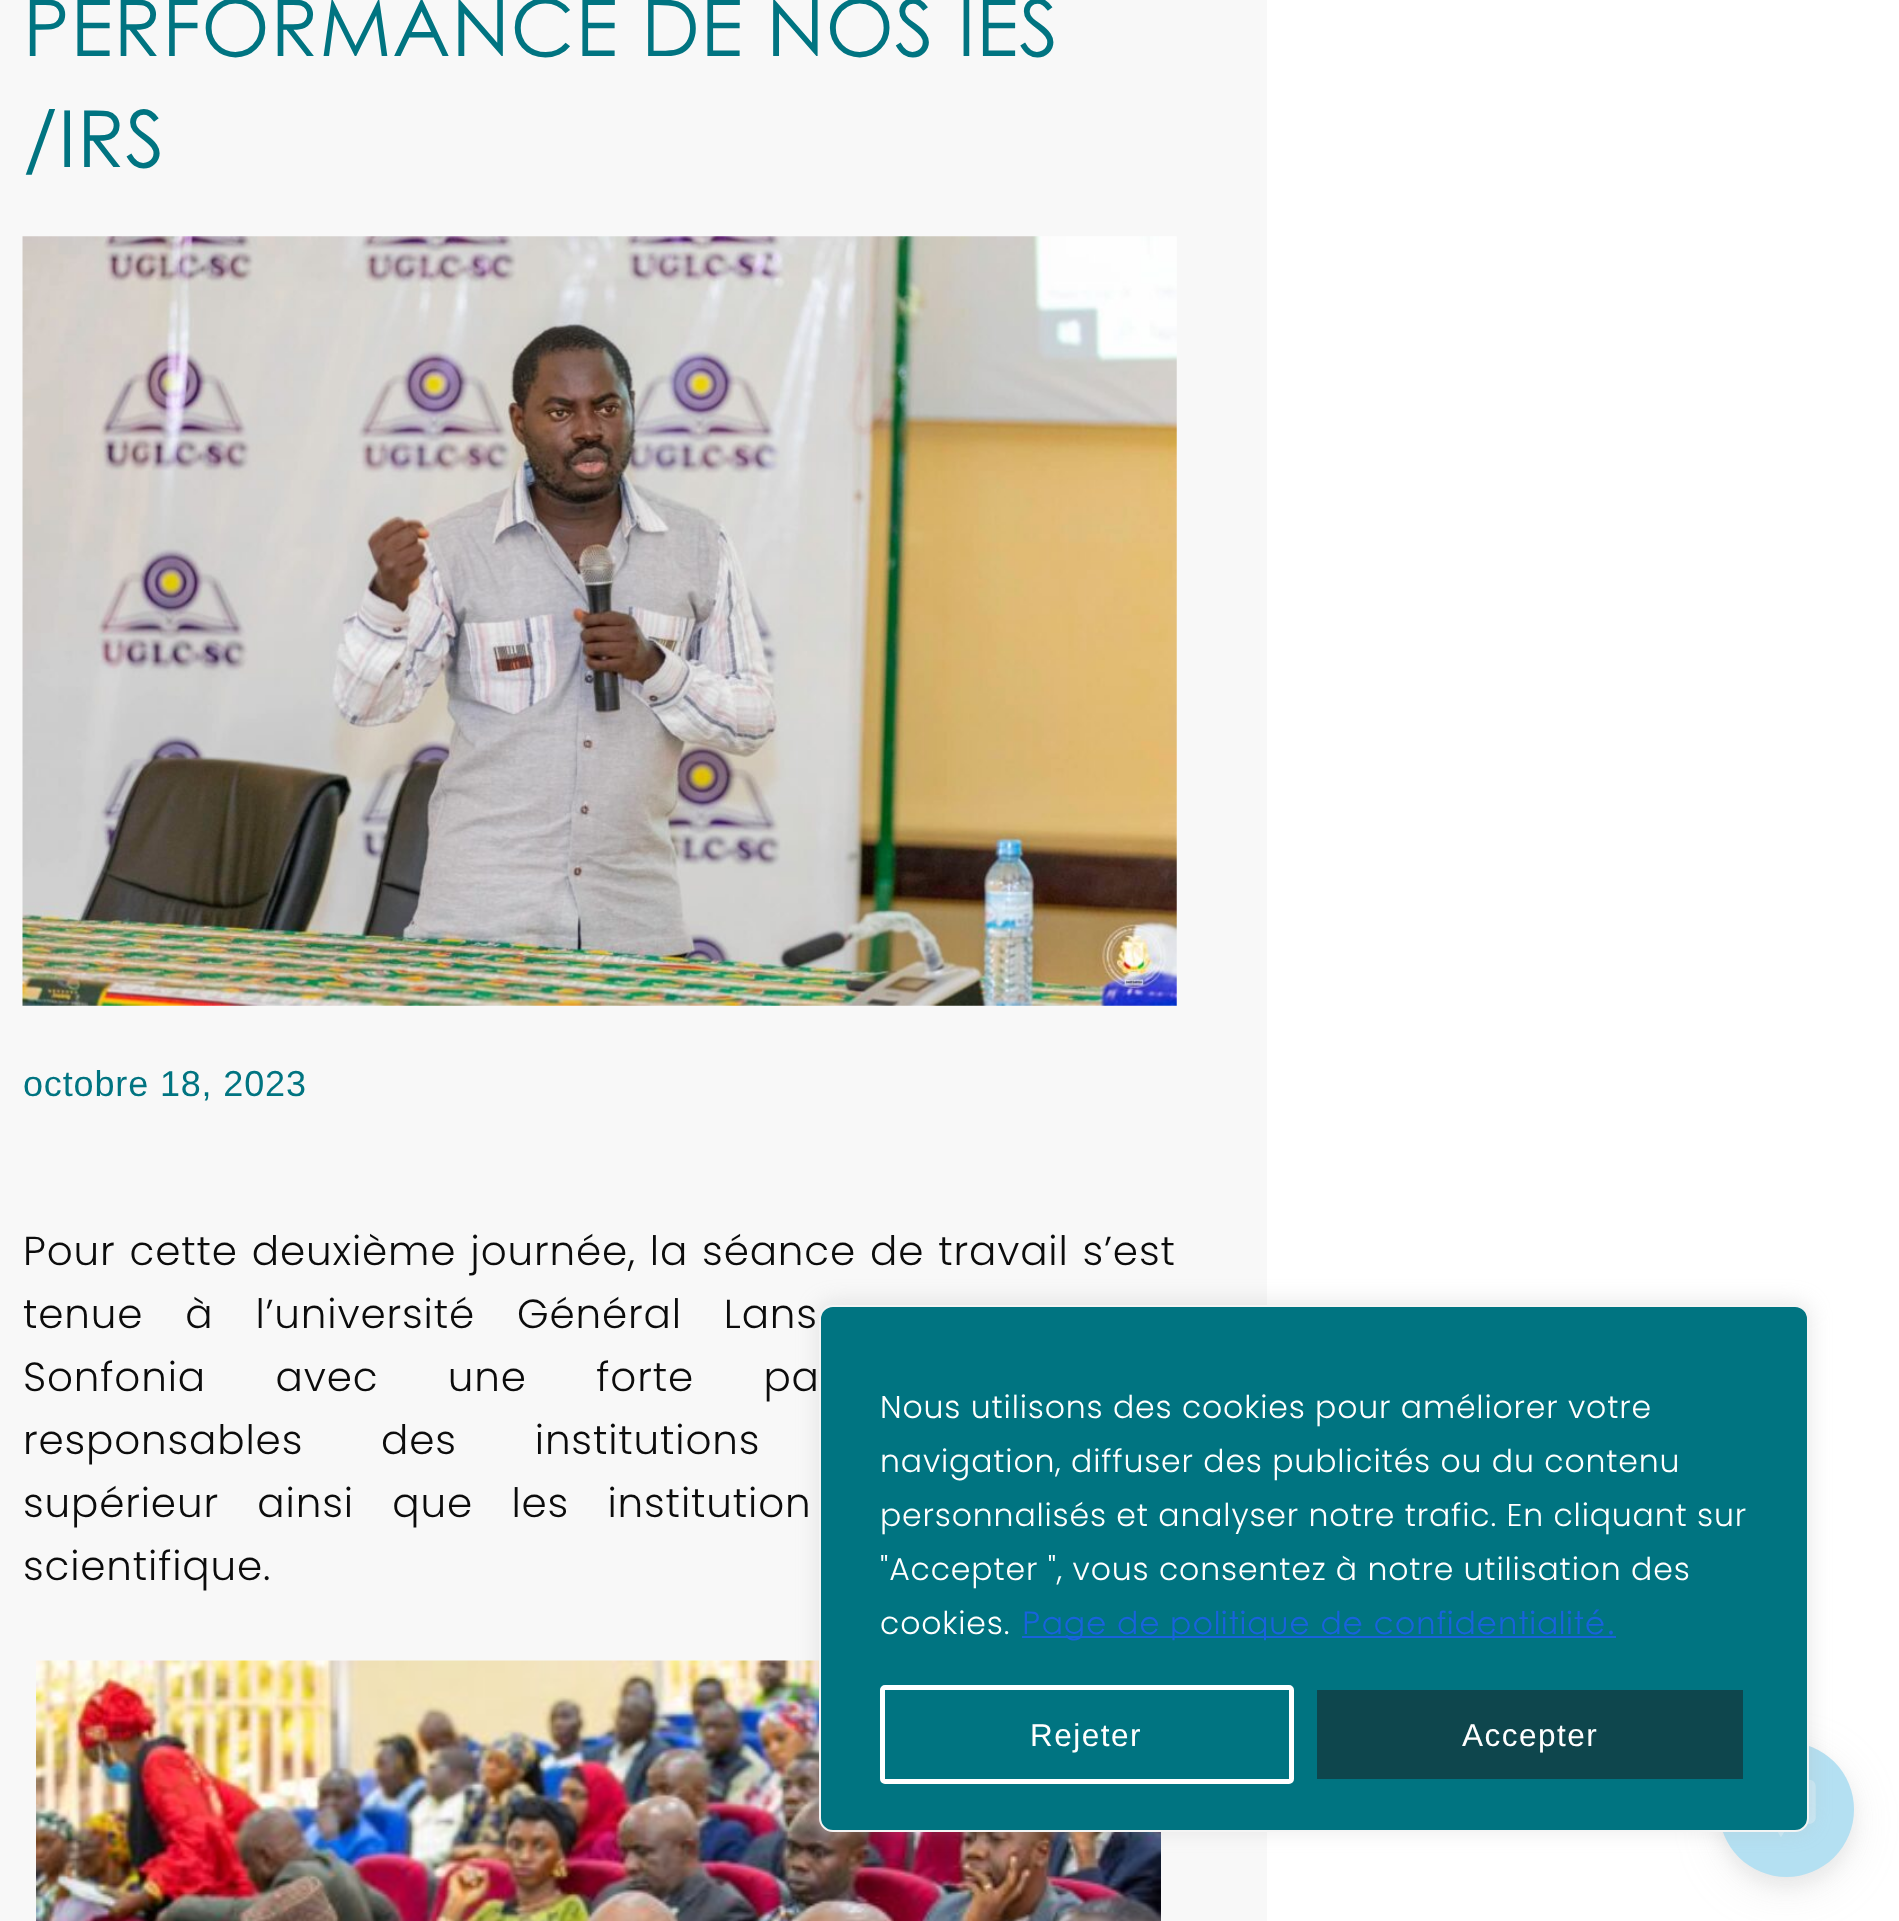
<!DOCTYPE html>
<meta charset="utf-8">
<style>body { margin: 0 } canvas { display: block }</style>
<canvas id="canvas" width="1899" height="1921"></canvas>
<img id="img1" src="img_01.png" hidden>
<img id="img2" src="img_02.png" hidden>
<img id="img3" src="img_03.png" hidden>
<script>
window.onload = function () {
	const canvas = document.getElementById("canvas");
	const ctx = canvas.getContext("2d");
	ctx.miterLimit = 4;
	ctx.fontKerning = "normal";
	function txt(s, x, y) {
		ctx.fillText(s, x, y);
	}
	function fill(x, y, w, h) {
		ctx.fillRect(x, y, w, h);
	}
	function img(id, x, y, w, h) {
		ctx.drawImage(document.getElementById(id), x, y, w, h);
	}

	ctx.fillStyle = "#F8F8F8";
	fill(0, 0, 1899, 1921);
	img("img1", 22, 236, 1155, 770);
	img("img2", 36, 1660, 1125, 261);
	ctx.fillStyle = "#FFFFFF";
	fill(1267, 0, 632, 1921);
	ctx.fillStyle = "rgba(179, 179, 179, 0.19)";
	ctx.filter = "blur(22.5px)";
	ctx.beginPath();
	ctx.roundRect(1719, 1755, 135, 135, 67.5);
	ctx.fill();
	ctx.filter = "none";
	ctx.fillStyle = "rgba(179, 179, 179, 0.2)";
	ctx.filter = "blur(9px)";
	ctx.beginPath();
	ctx.roundRect(1719, 1751, 135, 135, 67.5);
	ctx.fill();
	ctx.filter = "none";
	ctx.fillStyle = "#B4E0F2";
	ctx.beginPath();
	ctx.arc(1786.5, 1809.5, 67.5, 0, Math.PI * 2);
	ctx.fill();
	img("img3", 1778, 1779, 38, 58);
	ctx.fillStyle = "rgba(172, 171, 171, 0.3)";
	ctx.filter = "blur(11px)";
	ctx.beginPath();
	ctx.roundRect(819, 1303, 990, 526, 14);
	ctx.fill();
	ctx.filter = "none";
	ctx.fillStyle = "#007481";
	ctx.beginPath();
	ctx.roundRect(820, 1306, 988, 525, 13);
	ctx.fill();
	ctx.strokeStyle = "#F4F4F4";
	ctx.lineWidth = 2;
	ctx.stroke();
	ctx.fillStyle = "#1863DC";
	fill(1022, 1636, 594, 2);
	ctx.beginPath();
	ctx.roundRect(882.5, 1687.5, 409, 94, 2.5);
	ctx.strokeStyle = "#FFFFFF";
	ctx.lineWidth = 5;
	ctx.stroke();
	ctx.fillStyle = "#0E464D";
	ctx.beginPath();
	ctx.roundRect(1314.5, 1687.5, 431, 94, 2.5);
	ctx.fill();
	ctx.strokeStyle = "#007481";
	ctx.stroke();
	ctx.letterSpacing = "0.85px";
	ctx.font = "78.75px Century Gothic";
	ctx.fillStyle = "#007481";
	txt("PERFORMANCE DE NOS IES", 23, 56);
	txt("/IRS", 23, 167);
	ctx.font = "36px Liberation Sans";
	txt("octobre 18, 2023", 23, 1096);
	ctx.wordSpacing = "2px";
	ctx.font = "300 40.5px Poppins";
	ctx.fillStyle = "#0C0C0C";
	txt("Pour cette deuxième journée, la séance de travail s’est", 23, 1265);
	ctx.wordSpacing = "30px";
	txt("tenue à l’université Général Lans", 23, 1328);
	ctx.wordSpacing = "57.5px";
	txt("Sonfonia avec une forte pa", 23, 1391);
	ctx.wordSpacing = "66px";
	txt("responsables des institutions", 23, 1454);
	ctx.wordSpacing = "26.5px";
	txt("supérieur ainsi que les institution", 23, 1517);
	ctx.wordSpacing = "0px";
	txt("scientifique.", 23, 1580);
	ctx.font = "300 31.5px Poppins";
	ctx.fillStyle = "#FFFFFF";
	txt("Nous utilisons des cookies pour améliorer votre", 880, 1418);
	txt("navigation, diffuser des publicités ou du contenu", 880, 1472);
	txt("personnalisés et analyser notre trafic. En cliquant sur", 880, 1526);
	txt("\"Accepter \", vous consentez à notre utilisation des", 880, 1580);
	txt("cookies.", 880, 1634);
	ctx.font = "31.5px Century Gothic";
	ctx.fillStyle = "#1863DC";
	txt("Page de politique de confidentialité.", 1022, 1634);
	ctx.letterSpacing = "1.5px";
	ctx.font = "31.5px Liberation Sans";
	ctx.fillStyle = "#FFFFFF";
	txt("Rejeter", 1030, 1746);
	txt("Accepter", 1462, 1746);
};
</script>
